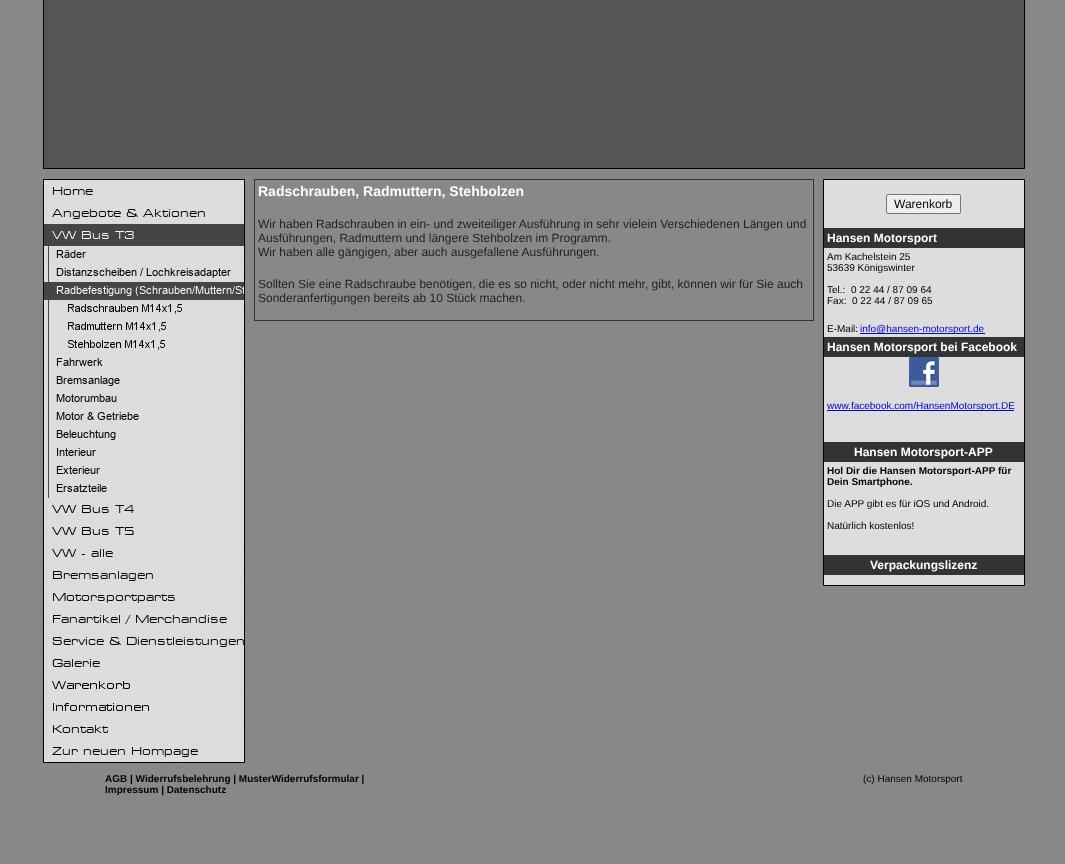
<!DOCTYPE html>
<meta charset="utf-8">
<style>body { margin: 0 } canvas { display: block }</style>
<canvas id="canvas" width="1065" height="864"></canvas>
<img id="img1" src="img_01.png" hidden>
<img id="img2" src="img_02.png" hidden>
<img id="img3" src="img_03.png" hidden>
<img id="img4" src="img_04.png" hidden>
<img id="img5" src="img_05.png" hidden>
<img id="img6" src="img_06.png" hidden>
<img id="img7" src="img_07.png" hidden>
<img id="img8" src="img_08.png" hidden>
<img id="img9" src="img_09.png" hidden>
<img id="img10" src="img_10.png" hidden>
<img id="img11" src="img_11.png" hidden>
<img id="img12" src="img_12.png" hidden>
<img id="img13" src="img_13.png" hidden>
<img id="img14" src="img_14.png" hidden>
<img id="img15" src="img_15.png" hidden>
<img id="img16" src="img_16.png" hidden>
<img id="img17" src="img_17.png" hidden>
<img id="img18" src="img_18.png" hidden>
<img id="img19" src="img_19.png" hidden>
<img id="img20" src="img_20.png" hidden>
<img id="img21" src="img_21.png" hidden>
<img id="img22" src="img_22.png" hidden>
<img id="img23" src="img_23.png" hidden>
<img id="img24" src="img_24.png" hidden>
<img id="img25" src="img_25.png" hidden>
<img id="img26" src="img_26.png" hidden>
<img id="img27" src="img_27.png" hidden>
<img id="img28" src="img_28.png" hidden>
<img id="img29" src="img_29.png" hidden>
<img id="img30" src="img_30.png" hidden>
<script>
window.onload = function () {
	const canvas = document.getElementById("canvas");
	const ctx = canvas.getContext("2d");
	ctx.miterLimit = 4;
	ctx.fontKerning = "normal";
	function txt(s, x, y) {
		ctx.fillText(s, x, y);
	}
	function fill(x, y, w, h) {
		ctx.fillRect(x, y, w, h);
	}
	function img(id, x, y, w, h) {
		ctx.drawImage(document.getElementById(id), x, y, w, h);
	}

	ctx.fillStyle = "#888888";
	fill(0, 0, 1065, 864);
	ctx.strokeStyle = "#000000";
	ctx.strokeRect(43.5, -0.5, 981, 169);
	ctx.fillStyle = "#545654";
	fill(44, 0, 980, 168);
	ctx.strokeRect(43.5, 179.5, 201, 583);
	img("img1", 44, 180, 200, 22);
	img("img2", 44, 202, 200, 22);
	img("img3", 44, 224, 200, 22);
	img("img4", 44, 246, 200, 18);
	img("img5", 44, 264, 200, 18);
	img("img6", 44, 282, 200, 18);
	img("img7", 44, 300, 200, 18);
	img("img8", 44, 318, 200, 18);
	img("img9", 44, 336, 200, 18);
	img("img10", 44, 354, 200, 18);
	img("img11", 44, 372, 200, 18);
	img("img12", 44, 390, 200, 18);
	img("img13", 44, 408, 200, 18);
	img("img14", 44, 426, 200, 18);
	img("img15", 44, 444, 200, 18);
	img("img16", 44, 462, 200, 18);
	img("img17", 44, 480, 200, 18);
	img("img18", 44, 498, 200, 22);
	img("img19", 44, 520, 200, 22);
	img("img20", 44, 542, 200, 22);
	img("img21", 44, 564, 200, 22);
	img("img22", 44, 586, 200, 22);
	img("img23", 44, 608, 200, 22);
	img("img24", 44, 630, 200, 22);
	img("img25", 44, 652, 200, 22);
	img("img26", 44, 674, 200, 22);
	img("img27", 44, 696, 200, 22);
	img("img28", 44, 718, 200, 22);
	img("img29", 44, 740, 200, 22);
	ctx.strokeStyle = "#333333";
	ctx.strokeRect(254.5, 179.5, 559, 141);
	ctx.fillStyle = "#DDDDDD";
	ctx.beginPath();
	ctx.rect(823.5, 179.5, 201, 406);
	ctx.fill();
	ctx.strokeStyle = "#000000";
	ctx.stroke();
	ctx.fillStyle = "#EFEFEF";
	ctx.beginPath();
	ctx.roundRect(886.5, 194.5, 74, 19, 1.5);
	ctx.fill();
	ctx.strokeStyle = "#767676";
	ctx.stroke();
	ctx.fillStyle = "#333333";
	fill(824, 228, 200, 20);
	ctx.fillStyle = "#0000EE";
	fill(860, 333, 125, 1);
	ctx.fillStyle = "#333333";
	fill(824, 337, 200, 20);
	img("img30", 909, 357, 30, 30);
	ctx.fillStyle = "#0000EE";
	fill(827, 410, 187, 1);
	ctx.fillStyle = "#333333";
	fill(824, 442, 200, 20);
	fill(824, 555, 200, 20);
	ctx.font = "bold 14px Liberation Sans";
	ctx.fillStyle = "#FFFFFF";
	txt("Radschrauben, Radmuttern, Stehbolzen", 258, 196);
	ctx.font = "12px Liberation Sans";
	ctx.fillStyle = "#222222";
	txt("Wir haben Radschrauben in ein- und zweiteiliger Ausführung in sehr vielein Verschiedenen Längen und", 258, 228);
	txt("Ausführungen, Radmuttern und längere Stehbolzen im Programm.", 258, 242);
	txt("Wir haben alle gängigen, aber auch ausgefallene Ausführungen.", 258, 256);
	txt("Sollten Sie eine Radschraube benötigen, die es so nicht, oder nicht mehr, gibt, können wir für Sie auch", 258, 288);
	txt("Sonderanfertigungen bereits ab 10 Stück machen.", 258, 302);
	ctx.fillStyle = "#000000";
	txt("Warenkorb", 894, 208);
	ctx.font = "bold 12px Liberation Sans";
	ctx.fillStyle = "#FFFFFF";
	txt("Hansen Motorsport", 827, 242);
	ctx.font = "10px Liberation Sans";
	ctx.fillStyle = "#000000";
	txt("Am Kachelstein 25", 827, 260);
	txt("53639 Königswinter", 827, 271);
	txt("Tel.:  0 22 44 / 87 09 64", 827, 293);
	txt("Fax:  0 22 44 / 87 09 65", 827, 304);
	txt("E-Mail:", 827, 332);
	ctx.fillStyle = "#0000EE";
	txt("info@hansen-motorsport.de", 860, 332);
	ctx.font = "bold 12px Liberation Sans";
	ctx.fillStyle = "#FFFFFF";
	txt("Hansen Motorsport bei Facebook", 827, 351);
	ctx.font = "10px Liberation Sans";
	ctx.fillStyle = "#0000EE";
	txt("www.facebook.com/HansenMotorsport.DE", 827, 409);
	ctx.font = "bold 12px Liberation Sans";
	ctx.fillStyle = "#FFFFFF";
	txt("Hansen Motorsport-APP", 854, 456);
	ctx.font = "bold 10px Liberation Sans";
	ctx.fillStyle = "#000000";
	txt("Hol Dir die Hansen Motorsport-APP für", 827, 474);
	txt("Dein Smartphone.", 827, 485);
	ctx.font = "10px Liberation Sans";
	txt("Die APP gibt es für iOS und Android.", 827, 507);
	txt("Natürlich kostenlos!", 827, 529);
	ctx.font = "bold 12px Liberation Sans";
	ctx.fillStyle = "#FFFFFF";
	txt("Verpackungslizenz", 870, 569);
	ctx.font = "bold 10px Liberation Sans";
	ctx.fillStyle = "#000000";
	txt("AGB | Widerrufsbelehrung | MusterWiderrufsformular |", 105, 782);
	txt("Impressum | Datenschutz", 105, 793);
	ctx.font = "10px Liberation Sans";
	txt("(c) Hansen Motorsport", 863, 782);
};
</script>
